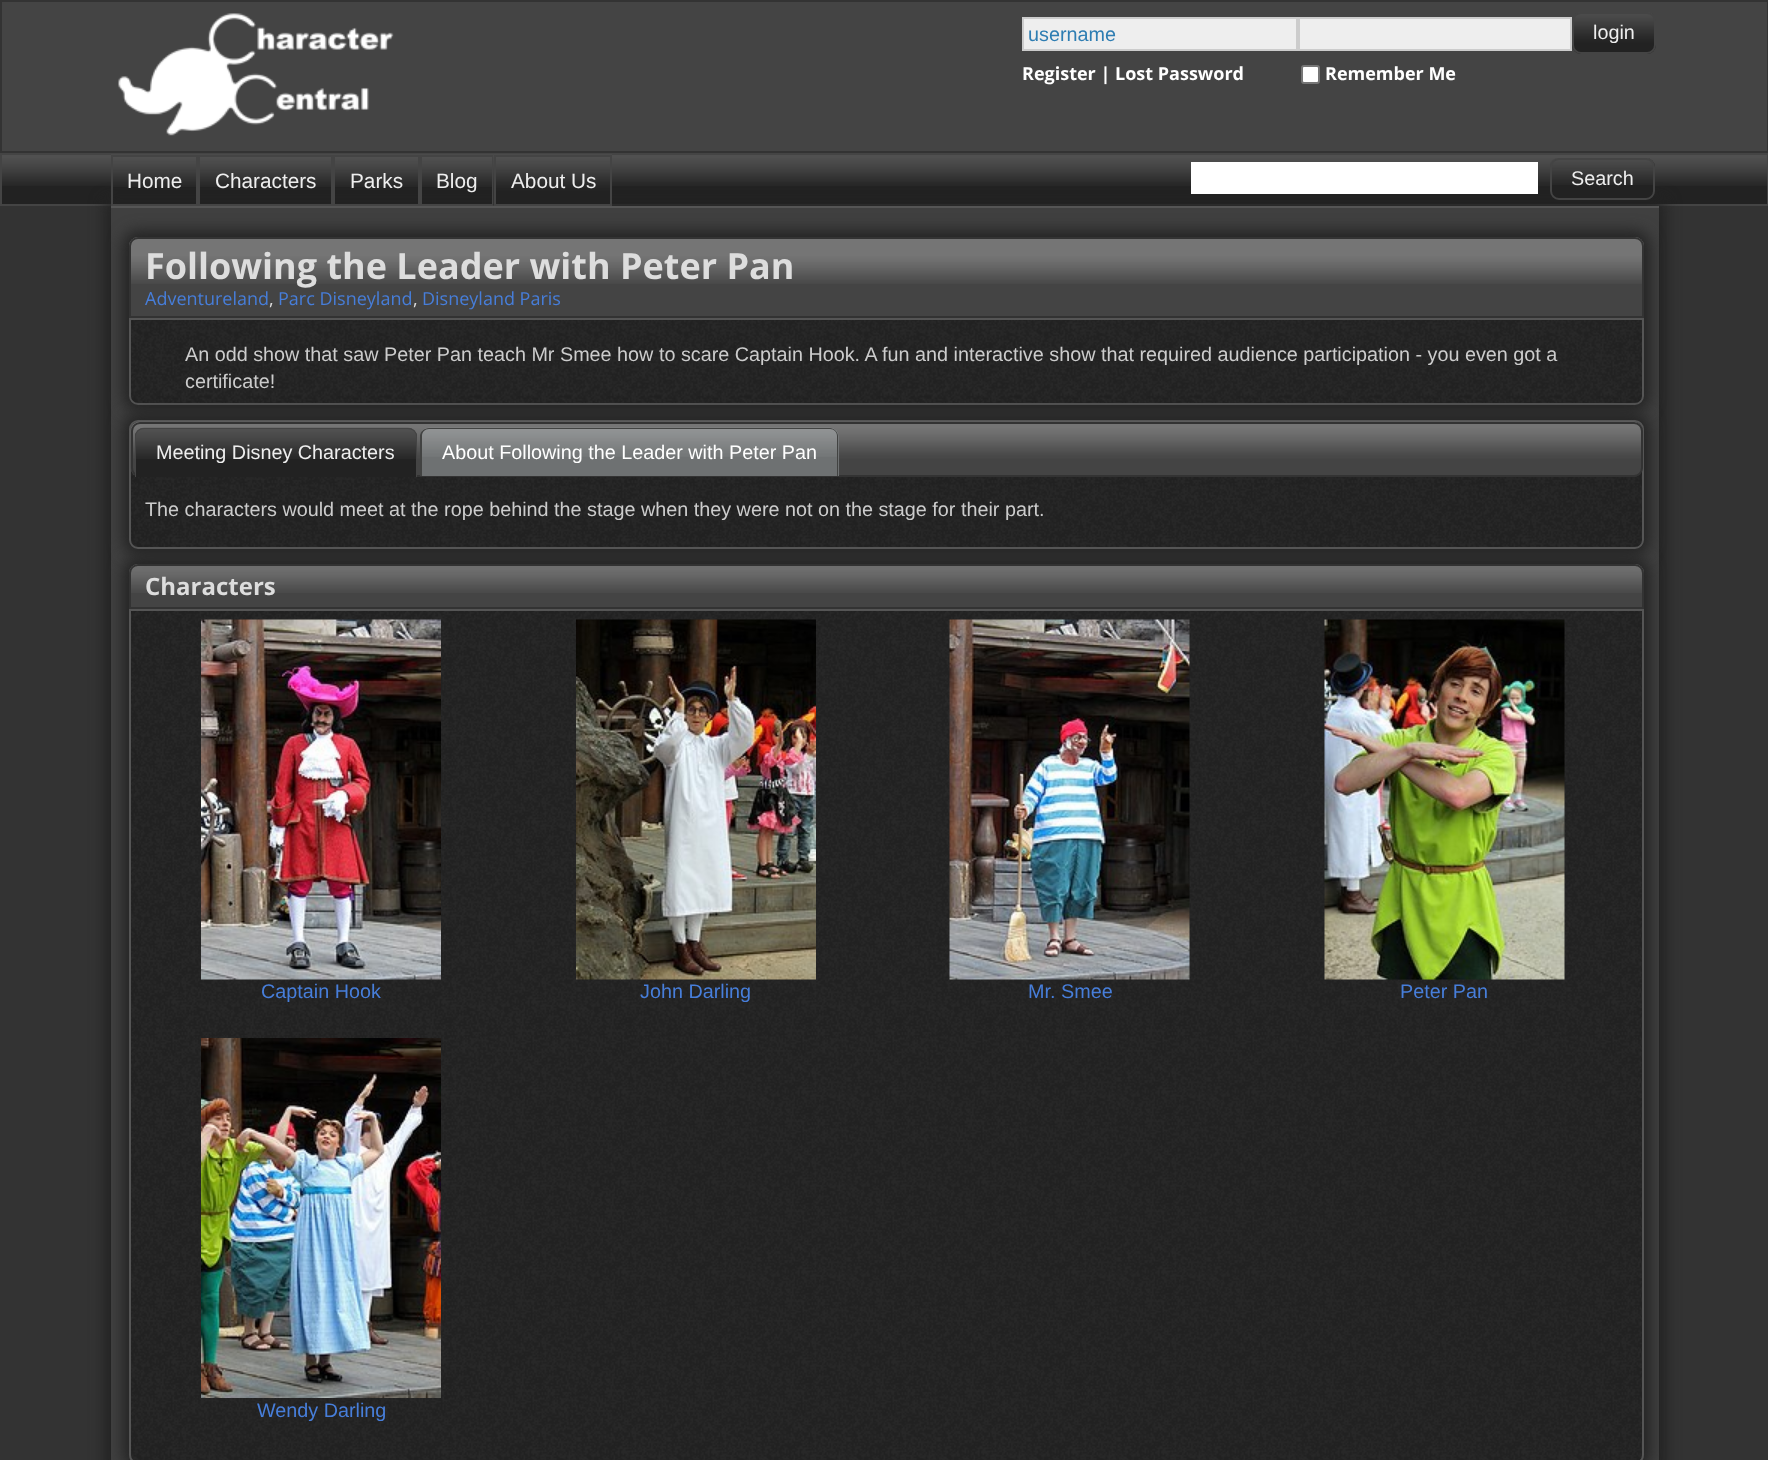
<!DOCTYPE html>
<meta charset="utf-8">
<style>body { margin: 0 } canvas { display: block }</style>
<canvas id="canvas" width="1768" height="1460"></canvas>
<img id="img1" src="img_01.png" hidden>
<img id="img2" src="img_02.png" hidden>
<img id="img3" src="img_03.png" hidden>
<img id="img4" src="img_04.png" hidden>
<img id="img5" src="img_05.png" hidden>
<img id="img6" src="img_06.png" hidden>
<img id="img7" src="img_07.png" hidden>
<img id="img8" src="img_08.png" hidden>
<img id="img9" src="img_09.png" hidden>
<img id="img10" src="img_14.png" hidden>
<img id="img11" src="img_10.png" hidden>
<img id="img12" src="img_11.png" hidden>
<img id="img13" src="img_12.png" hidden>
<img id="img14" src="img_13.png" hidden>
<img id="img15" src="img_15.png" hidden>
<img id="img16" src="img_16.png" hidden>
<img id="img17" src="img_17.png" hidden>
<img id="img18" src="img_18.png" hidden>
<img id="img19" src="img_19.png" hidden>
<img id="img20" src="img_20.png" hidden>
<img id="img21" src="img_21.png" hidden>
<script>
window.onload = function () {
	const canvas = document.getElementById("canvas");
	const ctx = canvas.getContext("2d");
	ctx.miterLimit = 4;
	ctx.fontKerning = "normal";
	function txt(s, x, y) {
		ctx.fillText(s, x, y);
	}
	function fill(x, y, w, h) {
		ctx.fillRect(x, y, w, h);
	}
	function round(x, y, w, h, r) {
		ctx.beginPath();
		ctx.roundRect(x, y, w, h, r);
		ctx.fill();
	}
	function img(id, x, y, w, h) {
		ctx.drawImage(document.getElementById(id), x, y, w, h);
	}

	ctx.fillStyle = "#333333";
	fill(0, 0, 1768, 1460);
	ctx.fillStyle = "#444444";
	fill(2, 2, 1765, 149);
	img("img1", 118, 13, 276, 123);
	ctx.fillStyle = "#EEEEEE";
	ctx.beginPath();
	ctx.rect(1023, 18, 274, 32);
	ctx.fill();
	ctx.strokeStyle = "#CCCCCC";
	ctx.lineWidth = 2;
	ctx.stroke();
	ctx.beginPath();
	ctx.rect(1299, 18, 272, 32);
	ctx.fill();
	ctx.stroke();
	img("img2", 1572, 12, 84, 42);
	ctx.beginPath();
	ctx.roundRect(1573, 13, 82, 40, 8);
	ctx.strokeStyle = "#444444";
	ctx.stroke();
	ctx.fillStyle = "#FFFFFF";
	ctx.beginPath();
	ctx.roundRect(1302, 66, 17, 17, 2);
	ctx.fill();
	ctx.strokeStyle = "#767676";
	ctx.stroke();
	ctx.fillStyle = "#222222";
	fill(2, 186, 1765, 18);
	img("img3", 2, 155, 1765, 31);
	ctx.strokeStyle = "#444444";
	ctx.strokeRect(1, 154, 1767, 51);
	ctx.filter = "blur(7.5px)";
	ctx.beginPath();
	ctx.rect(105, 200, 1560, 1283);
	ctx.fill();
	ctx.filter = "none";
	img("img4", 111, 154, 87, 33);
	ctx.strokeRect(112, 156, 85, 49);
	img("img5", 198, 154, 135, 33);
	ctx.strokeRect(199, 156, 133, 49);
	img("img4", 333, 154, 87, 33);
	ctx.strokeRect(334, 156, 85, 49);
	img("img6", 420, 154, 74, 33);
	ctx.strokeRect(421, 156, 72, 49);
	img("img7", 493, 154, 119, 52);
	ctx.strokeRect(495, 156, 116, 49);
	ctx.fillStyle = "#404040";
	fill(111, 208, 1548, 1252);
	ctx.fillStyle = "#555555";
	fill(111, 206, 1548, 2);
	ctx.fillStyle = "#222222";
	ctx.filter = "blur(7.5px)";
	ctx.beginPath();
	ctx.roundRect(123, 231, 1527, 180, 15);
	ctx.fill();
	ctx.filter = "none";
	ctx.fillStyle = "#444444";
	ctx.beginPath();
	ctx.roundRect(129, 237, 1515, 81, [9, 9, 0, 0]);
	ctx.fill();
	img("img8", 129, 237, 1515, 47);
	ctx.beginPath();
	ctx.roundRect(130, 238, 1513, 79, [8, 8, 0, 0]);
	ctx.strokeStyle = "#333333";
	ctx.stroke();
	img("img9", 129, 320, 1515, 85);
	ctx.beginPath();
	ctx.roundRect(130, 319, 1513, 85, [0, 0, 8, 8]);
	ctx.strokeStyle = "#555555";
	ctx.stroke();
	ctx.fillStyle = "#222222";
	ctx.filter = "blur(7.5px)";
	ctx.beginPath();
	ctx.roundRect(123, 558, 1527, 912, 15);
	ctx.fill();
	ctx.filter = "none";
	ctx.fillStyle = "#444444";
	ctx.beginPath();
	ctx.roundRect(129, 564, 1515, 45, [9, 9, 0, 0]);
	ctx.fill();
	img("img10", 129, 564, 1515, 29);
	ctx.beginPath();
	ctx.roundRect(130, 565, 1513, 43, [8, 8, 0, 0]);
	ctx.strokeStyle = "#333333";
	ctx.stroke();
	ctx.fillStyle = "#222222";
	ctx.filter = "blur(7.5px)";
	ctx.beginPath();
	ctx.roundRect(123, 414, 1527, 141, 15);
	ctx.fill();
	ctx.filter = "none";
	img("img11", 129, 420, 1515, 129);
	ctx.beginPath();
	ctx.roundRect(130, 421, 1513, 127, 8);
	ctx.strokeStyle = "#555555";
	ctx.stroke();
	img("img12", 130, 421, 1513, 56);
	ctx.beginPath();
	ctx.roundRect(132, 423, 1510, 53, 8);
	ctx.strokeStyle = "#333333";
	ctx.stroke();
	ctx.beginPath();
	ctx.roundRect(135, 428, 282, 49, [9, 9, 0, 0]);
	ctx.fill();
	img("img13", 135, 427, 282, 32);
	ctx.fillStyle = "#444444";
	ctx.beginPath();
	ctx.moveTo(144, 428);
	ctx.lineTo(408, 428);
	ctx.bezierCurveTo(413, 428, 417, 432, 417, 436);
	ctx.lineTo(417, 477);
	ctx.lineTo(135, 477);
	ctx.lineTo(135, 436);
	ctx.bezierCurveTo(135, 432, 139, 428, 144, 428);
	ctx.closePath();
	ctx.moveTo(144, 429);
	ctx.lineTo(408, 429);
	ctx.bezierCurveTo(412, 429, 416, 432, 416, 436);
	ctx.lineTo(416, 477);
	ctx.lineTo(136, 477);
	ctx.lineTo(136, 436);
	ctx.bezierCurveTo(136, 432, 140, 429, 144, 429);
	ctx.closePath();
	ctx.fill("evenodd");
	ctx.fillStyle = "#6E7172";
	ctx.beginPath();
	ctx.roundRect(420, 428, 419, 48, [9, 9, 0, 0]);
	ctx.fill();
	img("img14", 420, 427, 419, 30);
	ctx.fillStyle = "#424342";
	ctx.beginPath();
	ctx.moveTo(429, 428);
	ctx.lineTo(830, 428);
	ctx.bezierCurveTo(834, 428, 838, 432, 838, 436);
	ctx.lineTo(838, 476);
	ctx.lineTo(420, 476);
	ctx.lineTo(420, 436);
	ctx.bezierCurveTo(420, 432, 424, 428, 429, 428);
	ctx.closePath();
	ctx.moveTo(429, 429);
	ctx.lineTo(830, 429);
	ctx.bezierCurveTo(834, 429, 837, 432, 837, 436);
	ctx.lineTo(837, 476);
	ctx.lineTo(422, 476);
	ctx.lineTo(422, 436);
	ctx.bezierCurveTo(422, 432, 425, 429, 429, 429);
	ctx.closePath();
	ctx.fill("evenodd");
	img("img15", 129, 611, 1515, 849);
	ctx.beginPath();
	ctx.moveTo(130, 610);
	ctx.lineTo(1643, 610);
	ctx.lineTo(1643, 1455);
	ctx.bezierCurveTo(1643, 1459.5, 1639.5, 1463, 1635, 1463);
	ctx.lineTo(138, 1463);
	ctx.bezierCurveTo(133.5, 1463, 130, 1459.5, 130, 1455);
	ctx.closePath();
	ctx.strokeStyle = "#555555";
	ctx.stroke();
	img("img16", 201, 619, 240, 361);
	img("img17", 576, 619, 240, 361);
	img("img18", 949, 619, 241, 361);
	img("img19", 1324, 619, 241, 361);
	img("img20", 201, 1038, 240, 360);
	ctx.fillStyle = "#FFFFFF";
	fill(1191, 162, 347, 32);
	ctx.fillStyle = "#222222";
	round(1550, 158, 105, 42, 9);
	img("img21", 1550, 158, 105, 27);
	ctx.beginPath();
	ctx.roundRect(1551, 159, 103, 40, 8);
	ctx.strokeStyle = "#444444";
	ctx.stroke();
	ctx.font = "19.8px Liberation Sans";
	ctx.fillStyle = "#2E7DB2";
	txt("username", 1028, 41);
	ctx.fillStyle = "#EEEEEE";
	txt("login", 1593, 39);
	ctx.font = "bold 18px Open Sans";
	ctx.fillStyle = "#FFFFFF";
	txt("Register | Lost Password", 1022, 80);
	txt("Remember Me", 1325, 80);
	ctx.font = "20.75px Liberation Sans";
	ctx.fillStyle = "#EEEEEE";
	txt("Home", 127, 188);
	txt("Characters", 215, 188);
	txt("Parks", 350, 188);
	txt("Blog", 436, 188);
	txt("About Us", 511, 188);
	ctx.font = "bold 36px Open Sans";
	ctx.fillStyle = "#DDDDDD";
	txt("Following the Leader with Peter Pan", 145, 279);
	ctx.font = "18px Open Sans";
	ctx.fillStyle = "#477EDA";
	txt("Adventureland", 145, 305);
	ctx.fillStyle = "#DDDDDD";
	txt(",", 269, 305);
	ctx.fillStyle = "#477EDA";
	txt("Parc Disneyland", 278, 305);
	ctx.fillStyle = "#DDDDDD";
	txt(",", 413, 305);
	ctx.fillStyle = "#477EDA";
	txt("Disneyland Paris", 422, 305);
	ctx.font = "19.8px Liberation Sans";
	ctx.fillStyle = "#CCCCCC";
	txt("An odd show that saw Peter Pan teach Mr Smee how to scare Captain Hook. A fun and interactive show that required audience participation - you even got a", 185, 361);
	txt("certificate!", 185, 388);
	ctx.fillStyle = "#EEEEEE";
	txt("Meeting Disney Characters", 156, 459);
	ctx.fillStyle = "#FFFFFF";
	txt("About Following the Leader with Peter Pan", 442, 459);
	ctx.fillStyle = "#CCCCCC";
	txt("The characters would meet at the rope behind the stage when they were not on the stage for their part.", 145, 516);
	ctx.font = "bold 24px Open Sans";
	ctx.fillStyle = "#DDDDDD";
	txt("Characters", 145, 595);
	ctx.font = "19.8px Liberation Sans";
	ctx.fillStyle = "#477EDA";
	txt("Captain Hook", 261, 998);
	txt("John Darling", 640, 998);
	txt("Mr. Smee", 1028, 998);
	txt("Peter Pan", 1400, 998);
	txt("Wendy Darling", 257, 1417);
	ctx.fillStyle = "#EEEEEE";
	txt("Search", 1571, 185);
};
</script>
